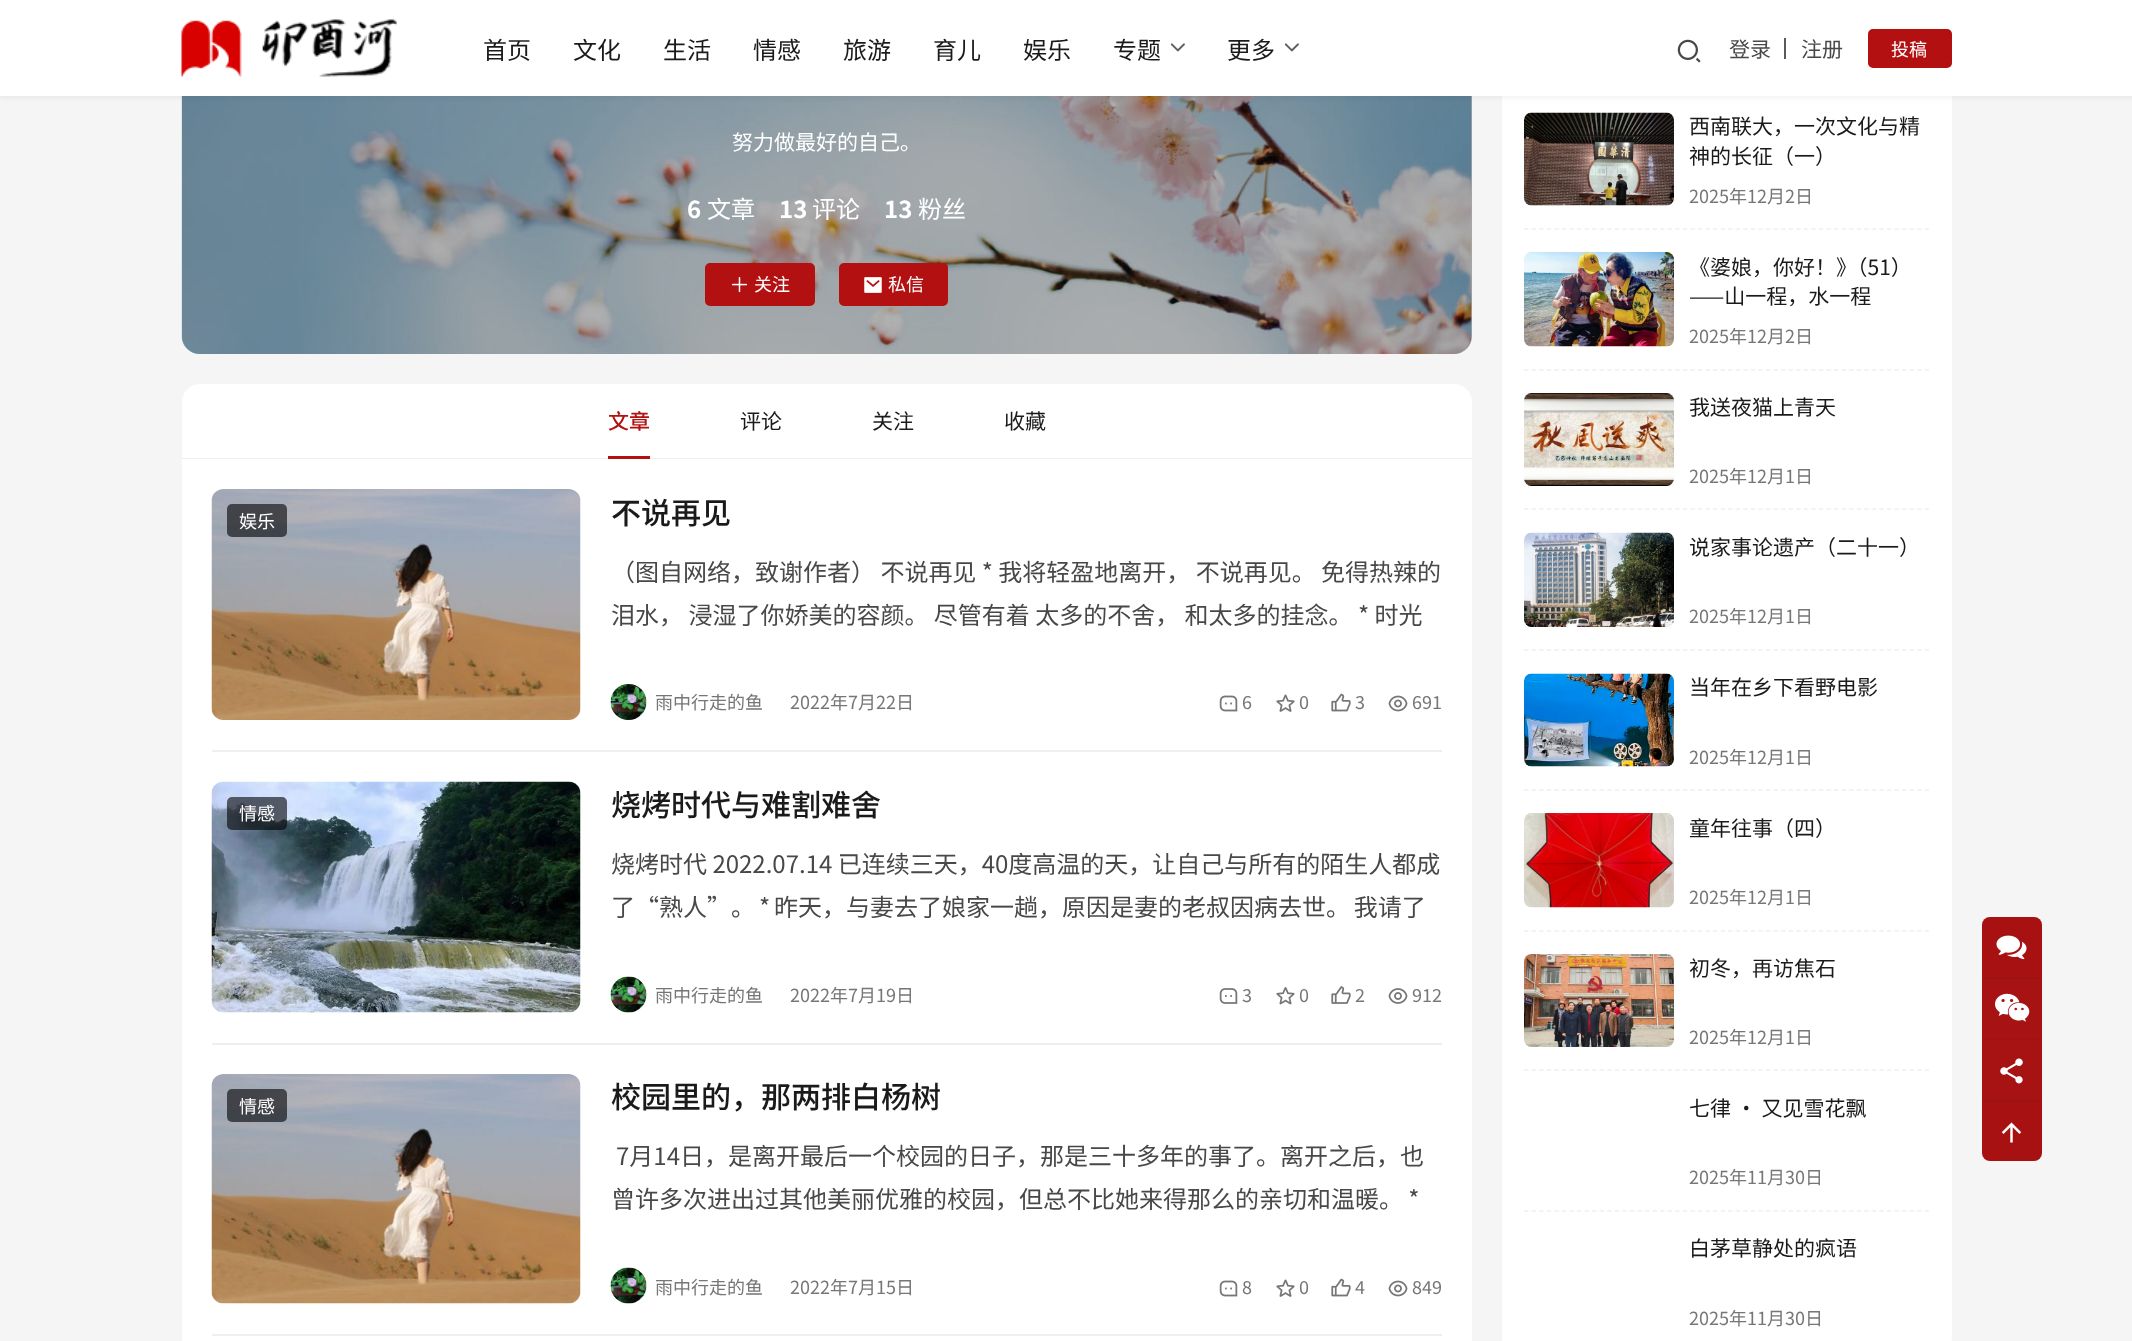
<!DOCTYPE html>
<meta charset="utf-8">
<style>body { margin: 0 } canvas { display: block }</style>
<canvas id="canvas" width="2132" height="1341"></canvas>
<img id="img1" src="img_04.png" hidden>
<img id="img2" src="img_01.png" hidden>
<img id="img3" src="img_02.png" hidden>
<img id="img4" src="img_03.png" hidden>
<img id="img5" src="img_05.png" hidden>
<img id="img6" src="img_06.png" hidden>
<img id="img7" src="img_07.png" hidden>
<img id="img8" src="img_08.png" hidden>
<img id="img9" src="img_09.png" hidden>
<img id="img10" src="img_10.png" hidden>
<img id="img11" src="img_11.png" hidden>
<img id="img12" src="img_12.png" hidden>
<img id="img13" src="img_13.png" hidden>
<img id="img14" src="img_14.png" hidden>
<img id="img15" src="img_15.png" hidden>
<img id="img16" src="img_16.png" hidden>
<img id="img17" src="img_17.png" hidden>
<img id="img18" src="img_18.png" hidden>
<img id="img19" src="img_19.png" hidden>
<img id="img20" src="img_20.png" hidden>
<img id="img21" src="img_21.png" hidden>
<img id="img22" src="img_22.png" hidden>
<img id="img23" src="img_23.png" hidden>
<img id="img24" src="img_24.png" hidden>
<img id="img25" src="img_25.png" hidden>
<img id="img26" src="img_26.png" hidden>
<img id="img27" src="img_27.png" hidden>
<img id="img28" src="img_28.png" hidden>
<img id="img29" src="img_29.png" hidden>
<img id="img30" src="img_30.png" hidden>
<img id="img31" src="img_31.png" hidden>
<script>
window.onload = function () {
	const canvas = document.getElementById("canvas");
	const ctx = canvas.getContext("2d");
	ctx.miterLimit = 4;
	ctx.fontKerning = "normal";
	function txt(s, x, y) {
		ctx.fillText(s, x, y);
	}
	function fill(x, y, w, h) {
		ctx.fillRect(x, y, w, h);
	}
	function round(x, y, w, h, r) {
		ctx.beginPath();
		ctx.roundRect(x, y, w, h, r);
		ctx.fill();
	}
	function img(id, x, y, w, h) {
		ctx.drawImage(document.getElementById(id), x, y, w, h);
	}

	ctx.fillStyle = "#F5F5F5";
	fill(0, 0, 2132, 1341);
	ctx.fillStyle = "#EFEFEF";
	round(182, -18, 1290, 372, 18);
	img("img1", 181, 96, 1291, 258);
	ctx.fillStyle = "rgba(0, 0, 0, 0.3)";
	round(182, -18, 1290, 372, 18);
	ctx.fillStyle = "#FFFFFF";
	round(1502, -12, 450, 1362, 12);
	ctx.fillStyle = "rgba(26, 26, 26, 0.06)";
	ctx.filter = "blur(2px)";
	ctx.beginPath();
	ctx.rect(-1, -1, 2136, 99);
	ctx.fill();
	ctx.filter = "none";
	ctx.fillStyle = "#FFFFFF";
	fill(0, 0, 2132, 96);
	img("img2", 181, 19, 216, 58);
	img("img3", 1170, 43, 15, 9);
	img("img3", 1284, 43, 15, 9);
	img("img4", 1677, 39, 24, 24);
	ctx.fillStyle = "#5A5A5A";
	fill(1784, 38, 2, 21);
	ctx.fillStyle = "#B31011";
	ctx.beginPath();
	ctx.roundRect(1869, 30, 82, 37, 4);
	ctx.fill();
	ctx.strokeStyle = "#B31011";
	ctx.lineWidth = 2;
	ctx.stroke();
	ctx.beginPath();
	ctx.roundRect(706, 264, 108, 41, 4);
	ctx.fill();
	ctx.stroke();
	img("img5", 731, 277, 17, 16);
	ctx.beginPath();
	ctx.roundRect(840, 264, 107, 41, 4);
	ctx.fill();
	ctx.stroke();
	img("img6", 864, 277, 18, 16);
	ctx.fillStyle = "#FFFFFF";
	ctx.beginPath();
	ctx.roundRect(182, 384, 1290, 75, [18, 18, 0, 0]);
	ctx.fill();
	ctx.fillStyle = "#EFEFEF";
	fill(182, 458, 1290, 1);
	ctx.fillStyle = "#B31011";
	fill(608, 456, 42, 3);
	ctx.fillStyle = "#FFFFFF";
	fill(182, 459, 1290, 882);
	ctx.fillStyle = "#EFEFEF";
	fill(212, 750, 1230, 2);
	img("img7", 211, 489, 370, 231);
	ctx.fillStyle = "rgba(0, 0, 0, 0.6)";
	round(227, 504, 60, 33, 5);
	ctx.fillStyle = "#F5F5F5";
	ctx.beginPath();
	ctx.arc(629, 702, 18, 0, Math.PI * 2);
	ctx.fill();
	img("img8", 610, 684, 37, 36);
	img("img9", 1219, 695, 19, 17);
	img("img10", 1276, 694, 19, 18);
	img("img11", 1331, 693, 20, 19);
	img("img12", 1388, 695, 20, 17);
	ctx.fillStyle = "#EFEFEF";
	fill(212, 1043, 1230, 2);
	img("img13", 211, 781, 370, 232);
	ctx.fillStyle = "rgba(0, 0, 0, 0.6)";
	round(227, 797, 60, 33, 5);
	ctx.fillStyle = "#F5F5F5";
	ctx.beginPath();
	ctx.arc(629, 995, 18, 0, Math.PI * 2);
	ctx.fill();
	img("img14", 610, 976, 37, 37);
	img("img15", 1219, 988, 19, 16);
	img("img16", 1276, 987, 19, 18);
	img("img17", 1331, 986, 20, 18);
	img("img18", 1388, 988, 20, 16);
	ctx.fillStyle = "#EFEFEF";
	fill(212, 1334, 1230, 2);
	img("img19", 211, 1074, 370, 230);
	ctx.fillStyle = "rgba(0, 0, 0, 0.6)";
	round(227, 1089, 60, 33, 5);
	ctx.fillStyle = "#F5F5F5";
	ctx.beginPath();
	ctx.arc(629, 1286, 18, 0, Math.PI * 2);
	ctx.fill();
	img("img20", 610, 1267, 37, 37);
	img("img9", 1219, 1280, 19, 17);
	img("img10", 1276, 1279, 19, 18);
	img("img11", 1331, 1278, 20, 19);
	img("img12", 1388, 1280, 20, 17);
	ctx.beginPath();
	ctx.moveTo(1524, 229);
	ctx.lineTo(1929, 229);
	ctx.strokeStyle = "#EFEFEF";
	ctx.lineWidth = 1.5;
	ctx.setLineDash([4.5, 3.06]);
	ctx.stroke();
	img("img21", 1524, 112, 150, 94);
	ctx.beginPath();
	ctx.moveTo(1524, 370);
	ctx.lineTo(1929, 370);
	ctx.stroke();
	img("img22", 1524, 252, 150, 95);
	ctx.beginPath();
	ctx.moveTo(1524, 509);
	ctx.lineTo(1929, 509);
	ctx.stroke();
	img("img23", 1524, 393, 150, 93);
	ctx.beginPath();
	ctx.moveTo(1524, 650);
	ctx.lineTo(1929, 650);
	ctx.stroke();
	img("img24", 1524, 532, 150, 95);
	ctx.beginPath();
	ctx.moveTo(1524, 790);
	ctx.lineTo(1929, 790);
	ctx.stroke();
	img("img25", 1524, 673, 150, 94);
	ctx.beginPath();
	ctx.moveTo(1524, 931);
	ctx.lineTo(1929, 931);
	ctx.stroke();
	img("img26", 1524, 813, 150, 95);
	ctx.beginPath();
	ctx.moveTo(1524, 1070);
	ctx.lineTo(1929, 1070);
	ctx.stroke();
	img("img27", 1524, 954, 150, 93);
	ctx.beginPath();
	ctx.moveTo(1524, 1211);
	ctx.lineTo(1929, 1211);
	ctx.stroke();
	ctx.fillStyle = "#B21112";
	ctx.beginPath();
	ctx.roundRect(1982, 917, 60, 60, [8, 8, 0, 0]);
	ctx.fill();
	ctx.fillStyle = "rgba(26, 26, 26, 0.07)";
	ctx.beginPath();
	ctx.roundRect(1982, 917, 60, 60, [8, 8, 0, 0]);
	ctx.fill();
	img("img28", 1996, 935, 31, 25);
	ctx.fillStyle = "#A71213";
	fill(1982, 979, 60, 59);
	ctx.fillStyle = "#A31213";
	fill(1982, 977, 60, 1);
	ctx.fillStyle = "#991313";
	fill(1982, 978, 60, 1);
	img("img29", 1995, 993, 35, 29);
	ctx.fillStyle = "#A31213";
	fill(1982, 1038, 60, 2);
	ctx.fillStyle = "#A71213";
	fill(1982, 1040, 60, 60);
	img("img30", 2000, 1058, 23, 26);
	ctx.fillStyle = "#B21112";
	ctx.beginPath();
	ctx.roundRect(1982, 1100, 60, 61, [0, 0, 8, 8]);
	ctx.fill();
	ctx.fillStyle = "#A31213";
	fill(1982, 1100, 60, 2);
	ctx.fillStyle = "rgba(26, 26, 26, 0.07)";
	ctx.beginPath();
	ctx.roundRect(1982, 1101, 60, 60, [0, 0, 8, 8]);
	ctx.fill();
	img("img31", 2001, 1122, 21, 21);
	ctx.font = "24px Noto Sans CJK SC";
	ctx.fillStyle = "#1A1A1A";
	txt("首页", 483, 59);
	txt("文化", 573, 59);
	txt("生活", 663, 59);
	txt("情感", 753, 59);
	txt("旅游", 843, 59);
	txt("育儿", 933, 59);
	txt("娱乐", 1023, 59);
	txt("专题", 1113, 59);
	txt("更多", 1227, 59);
	ctx.font = "21px Noto Sans CJK SC";
	ctx.fillStyle = "#484848";
	txt("登录", 1729, 57);
	txt("注册", 1801, 57);
	ctx.font = "18px Noto Sans CJK SC";
	ctx.fillStyle = "#FFFFFF";
	txt("投稿", 1891, 56);
	ctx.font = "21px Noto Sans CJK SC";
	txt("努力做最好的自己。", 732, 150);
	ctx.font = "bold 24px Noto Sans CJK SC";
	txt("6", 687, 218);
	ctx.font = "24px Noto Sans CJK SC";
	txt("文章", 707, 218);
	ctx.font = "bold 24px Noto Sans CJK SC";
	txt("13", 779, 218);
	ctx.font = "24px Noto Sans CJK SC";
	txt("评论", 812, 218);
	ctx.font = "bold 24px Noto Sans CJK SC";
	txt("13", 884, 218);
	ctx.font = "24px Noto Sans CJK SC";
	txt("粉丝", 918, 218);
	ctx.font = "18px Noto Sans CJK SC";
	txt("关注", 754, 291);
	txt("私信", 888, 291);
	ctx.font = "500 21px Noto Sans CJK SC";
	ctx.fillStyle = "#B31011";
	txt("文章", 608, 429);
	ctx.font = "21px Noto Sans CJK SC";
	ctx.fillStyle = "#1A1A1A";
	txt("评论", 740, 429);
	txt("关注", 872, 429);
	txt("收藏", 1004, 429);
	ctx.font = "18px Noto Sans CJK SC";
	ctx.fillStyle = "#FFFFFF";
	txt("娱乐", 239, 528);
	ctx.font = "500 30px Noto Sans CJK SC";
	ctx.fillStyle = "#1A1A1A";
	txt("不说再见", 611, 524);
	ctx.font = "24px Noto Sans CJK SC";
	ctx.fillStyle = "#484848";
	txt("（图自网络，致谢作者） 不说再见 * 我将轻盈地离开， 不说再见。 免得热辣的", 611, 581);
	txt("泪水， 浸湿了你娇美的容颜。 尽管有着 太多的不舍， 和太多的挂念。 * 时光", 611, 624);
	ctx.font = "18px Noto Sans CJK SC";
	ctx.fillStyle = "#767676";
	txt("雨中行走的鱼", 655, 709);
	txt("2022年7月22日", 790, 709);
	txt("6", 1242, 709);
	txt("0", 1299, 709);
	txt("3", 1355, 709);
	txt("691", 1412, 709);
	ctx.fillStyle = "#FFFFFF";
	txt("情感", 239, 820);
	ctx.font = "500 30px Noto Sans CJK SC";
	ctx.fillStyle = "#1A1A1A";
	txt("烧烤时代与难割难舍", 611, 816);
	ctx.font = "24px Noto Sans CJK SC";
	ctx.fillStyle = "#484848";
	txt("烧烤时代 2022.07.14 已连续三天，40度高温的天，让自己与所有的陌生人都成", 611, 873);
	ctx.wordSpacing = "-1.5px";
	txt("了“熟人”。 * 昨天，与妻去了娘家一趟，原因是妻的老叔因病去世。 我请了", 611, 916);
	ctx.wordSpacing = "0px";
	ctx.font = "18px Noto Sans CJK SC";
	ctx.fillStyle = "#767676";
	txt("雨中行走的鱼", 655, 1002);
	txt("2022年7月19日", 790, 1002);
	txt("3", 1242, 1002);
	txt("0", 1299, 1002);
	txt("2", 1355, 1002);
	txt("912", 1412, 1002);
	ctx.fillStyle = "#FFFFFF";
	txt("情感", 239, 1113);
	ctx.font = "500 30px Noto Sans CJK SC";
	ctx.fillStyle = "#1A1A1A";
	txt("校园里的，那两排白杨树", 611, 1108);
	ctx.font = "24px Noto Sans CJK SC";
	ctx.fillStyle = "#484848";
	txt("7月14日，是离开最后一个校园的日子，那是三十多年的事了。离开之后，也", 616, 1165);
	txt("曾许多次进出过其他美丽优雅的校园，但总不比她来得那么的亲切和温暖。 *", 611, 1208);
	ctx.font = "18px Noto Sans CJK SC";
	ctx.fillStyle = "#767676";
	txt("雨中行走的鱼", 655, 1294);
	txt("2022年7月15日", 790, 1294);
	txt("8", 1242, 1294);
	txt("0", 1299, 1294);
	txt("4", 1355, 1294);
	txt("849", 1412, 1294);
	ctx.font = "21px Noto Sans CJK SC";
	ctx.fillStyle = "#1A1A1A";
	txt("西南联大，一次文化与精", 1689, 134);
	txt("神的长征（一）", 1689, 164);
	ctx.font = "18px Noto Sans CJK SC";
	ctx.fillStyle = "#767676";
	txt("2025年12月2日", 1689, 203);
	ctx.font = "21px Noto Sans CJK SC";
	ctx.fillStyle = "#1A1A1A";
	txt("《婆娘，你好！》（51）", 1689, 275);
	txt("——山一程，水一程", 1689, 304);
	ctx.font = "18px Noto Sans CJK SC";
	ctx.fillStyle = "#767676";
	txt("2025年12月2日", 1689, 343);
	ctx.font = "21px Noto Sans CJK SC";
	ctx.fillStyle = "#1A1A1A";
	txt("我送夜猫上青天", 1689, 415);
	ctx.font = "18px Noto Sans CJK SC";
	ctx.fillStyle = "#767676";
	txt("2025年12月1日", 1689, 483);
	ctx.font = "21px Noto Sans CJK SC";
	ctx.fillStyle = "#1A1A1A";
	txt("说家事论遗产（二十一）", 1689, 555);
	ctx.font = "18px Noto Sans CJK SC";
	ctx.fillStyle = "#767676";
	txt("2025年12月1日", 1689, 623);
	ctx.font = "21px Noto Sans CJK SC";
	ctx.fillStyle = "#1A1A1A";
	txt("当年在乡下看野电影", 1689, 695);
	ctx.font = "18px Noto Sans CJK SC";
	ctx.fillStyle = "#767676";
	txt("2025年12月1日", 1689, 764);
	ctx.font = "21px Noto Sans CJK SC";
	ctx.fillStyle = "#1A1A1A";
	txt("童年往事（四）", 1689, 836);
	ctx.font = "18px Noto Sans CJK SC";
	ctx.fillStyle = "#767676";
	txt("2025年12月1日", 1689, 904);
	ctx.font = "21px Noto Sans CJK SC";
	ctx.fillStyle = "#1A1A1A";
	txt("初冬，再访焦石", 1689, 976);
	ctx.font = "18px Noto Sans CJK SC";
	ctx.fillStyle = "#767676";
	txt("2025年12月1日", 1689, 1044);
	ctx.font = "21px Noto Sans CJK SC";
	ctx.fillStyle = "#1A1A1A";
	txt("七律 · 又见雪花飘", 1689, 1116);
	ctx.font = "18px Noto Sans CJK SC";
	ctx.fillStyle = "#767676";
	txt("2025年11月30日", 1689, 1184);
	ctx.font = "21px Noto Sans CJK SC";
	ctx.fillStyle = "#1A1A1A";
	txt("白茅草静处的疯语", 1689, 1256);
	ctx.font = "18px Noto Sans CJK SC";
	ctx.fillStyle = "#767676";
	txt("2025年11月30日", 1689, 1325);
};
</script>
